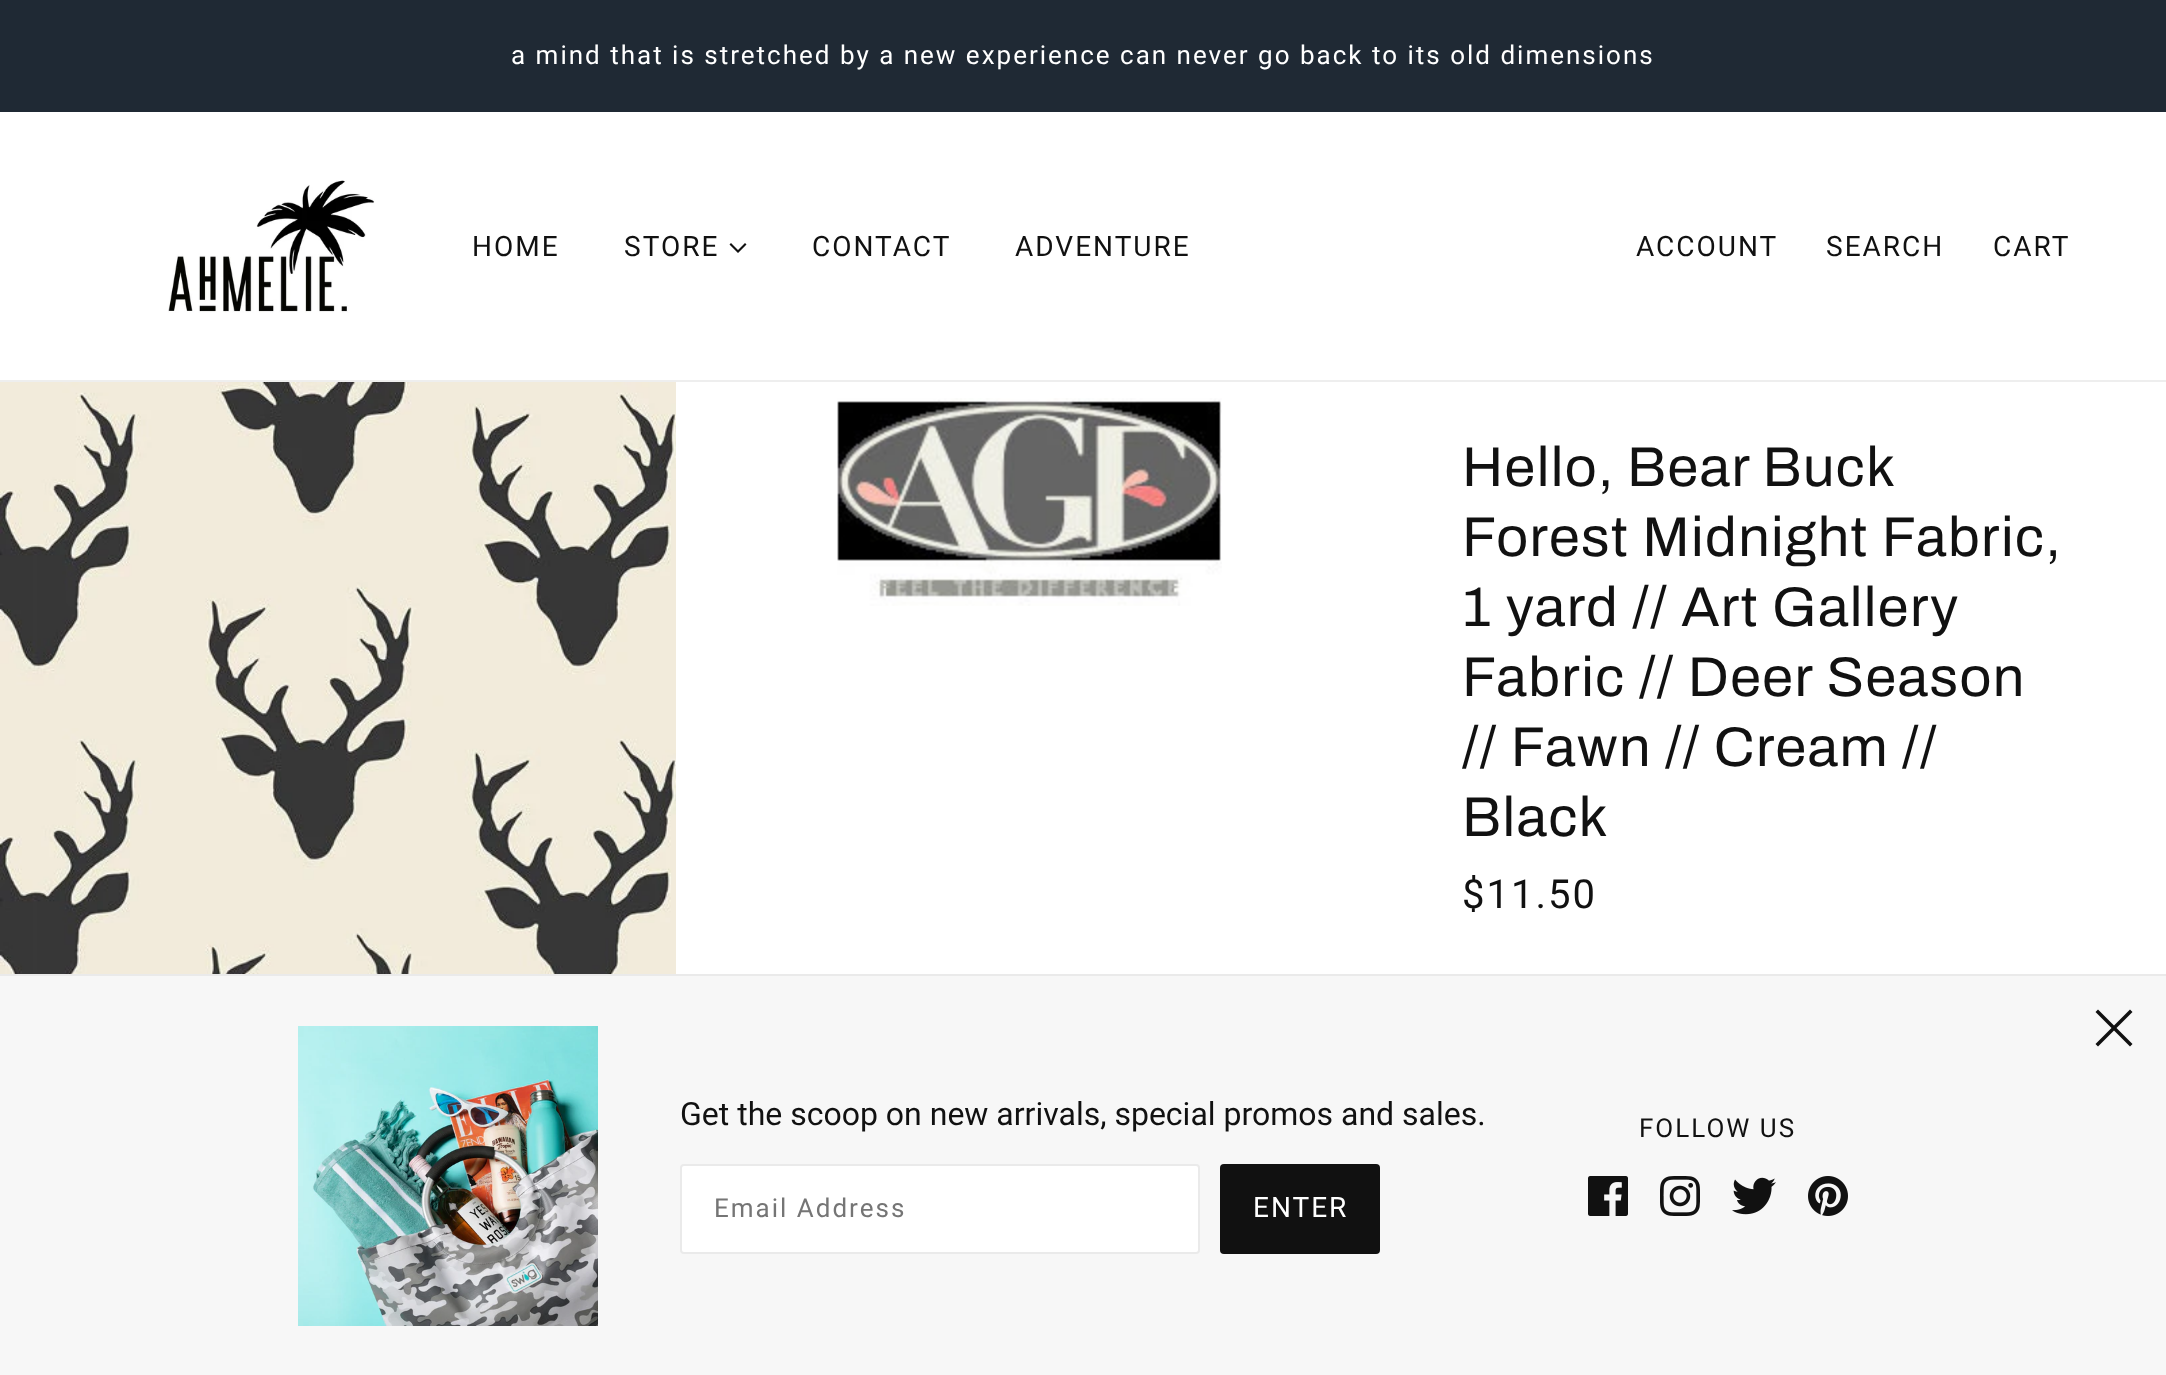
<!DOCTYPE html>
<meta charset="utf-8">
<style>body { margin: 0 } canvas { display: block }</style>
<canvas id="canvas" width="2166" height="1375"></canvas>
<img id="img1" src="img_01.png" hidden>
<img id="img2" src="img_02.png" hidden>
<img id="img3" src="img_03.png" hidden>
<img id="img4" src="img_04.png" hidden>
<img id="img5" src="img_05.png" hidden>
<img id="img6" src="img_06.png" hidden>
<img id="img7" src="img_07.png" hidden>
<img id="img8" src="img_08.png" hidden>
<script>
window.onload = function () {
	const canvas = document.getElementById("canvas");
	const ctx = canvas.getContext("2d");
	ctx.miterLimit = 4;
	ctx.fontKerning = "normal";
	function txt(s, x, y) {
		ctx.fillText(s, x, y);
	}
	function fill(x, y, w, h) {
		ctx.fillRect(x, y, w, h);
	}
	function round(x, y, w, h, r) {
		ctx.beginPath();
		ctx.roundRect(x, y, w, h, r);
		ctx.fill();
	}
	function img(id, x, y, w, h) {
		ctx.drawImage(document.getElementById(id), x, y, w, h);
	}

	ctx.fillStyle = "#FFFFFF";
	fill(0, 0, 2166, 1375);
	ctx.fillStyle = "#1F2934";
	fill(0, 0, 2166, 112);
	ctx.fillStyle = "#EEEEEE";
	fill(0, 380, 2166, 2);
	img("img1", 168, 180, 207, 133);
	ctx.fillStyle = "#111111";
	ctx.beginPath();
	ctx.moveTo(738, 250);
	ctx.lineTo(745, 243);
	ctx.lineTo(746.5, 244.5);
	ctx.lineTo(738, 253);
	ctx.lineTo(729.5, 244.5);
	ctx.lineTo(731, 243);
	ctx.closePath();
	ctx.fill();
	img("img2", 0, 382, 676, 592);
	img("img3", 837, 398, 385, 208);
	ctx.fillStyle = "#F7F7F7";
	fill(0, 976, 2166, 399);
	ctx.fillStyle = "#EAEAEA";
	fill(0, 974, 2166, 2);
	img("img4", 298, 1026, 300, 300);
	ctx.fillStyle = "#FFFFFF";
	ctx.beginPath();
	ctx.roundRect(681, 1165, 518, 88, 3);
	ctx.fill();
	ctx.strokeStyle = "#EAEAEA";
	ctx.lineWidth = 2;
	ctx.stroke();
	ctx.fillStyle = "#111111";
	round(1220, 1164, 160, 90, 4);
	img("img5", 1588, 1176, 40, 40);
	img("img6", 1660, 1176, 40, 40);
	img("img7", 1732, 1177, 44, 38);
	img("img8", 1808, 1176, 40, 40);
	ctx.beginPath();
	ctx.moveTo(2114, 1025.5);
	ctx.lineTo(2130, 1009.5);
	ctx.lineTo(2132.5, 1012);
	ctx.lineTo(2116.5, 1028);
	ctx.lineTo(2132.5, 1044);
	ctx.lineTo(2130, 1046.5);
	ctx.lineTo(2114, 1030.5);
	ctx.lineTo(2098, 1046.5);
	ctx.lineTo(2095.5, 1044);
	ctx.lineTo(2111.5, 1028);
	ctx.lineTo(2095.5, 1012);
	ctx.lineTo(2098, 1009.5);
	ctx.closePath();
	ctx.fill();
	ctx.letterSpacing = "2px";
	ctx.font = "26px Roboto";
	ctx.fillStyle = "#FFFFFF";
	txt("a mind that is stretched by a new experience can never go back to its old dimensions", 511, 64);
	ctx.font = "28px Roboto";
	ctx.fillStyle = "#111111";
	txt("HOME", 472, 256);
	txt("STORE", 624, 256);
	txt("CONTACT", 812, 256);
	txt("ADVENTURE", 1015, 256);
	txt("ACCOUNT", 1636, 256);
	txt("SEARCH", 1826, 256);
	txt("CART", 1993, 256);
	ctx.letterSpacing = "1.4px";
	ctx.wordSpacing = "-1px";
	ctx.font = "56px Archivo";
	txt("Hello, Bear Buck", 1462, 486);
	ctx.wordSpacing = "0px";
	txt("Forest Midnight Fabric,", 1462, 556);
	txt("1 yard // Art Gallery", 1462, 626);
	txt("Fabric // Deer Season", 1462, 696);
	txt("// Fawn // Cream //", 1462, 766);
	txt("Black", 1462, 836);
	ctx.letterSpacing = "2px";
	ctx.font = "40px Roboto";
	txt("$11.50", 1462, 908);
	ctx.letterSpacing = "0px";
	ctx.font = "32px Roboto";
	txt("Get the scoop on new arrivals, special promos and sales.", 680, 1125);
	ctx.letterSpacing = "2px";
	ctx.font = "26px Roboto";
	ctx.fillStyle = "#757575";
	txt("Email Address", 714, 1217);
	ctx.font = "28px Roboto";
	ctx.fillStyle = "#FFFFFF";
	txt("ENTER", 1253, 1217);
	ctx.font = "26px Roboto";
	ctx.fillStyle = "#111111";
	txt("FOLLOW US", 1639, 1137);
};
</script>
